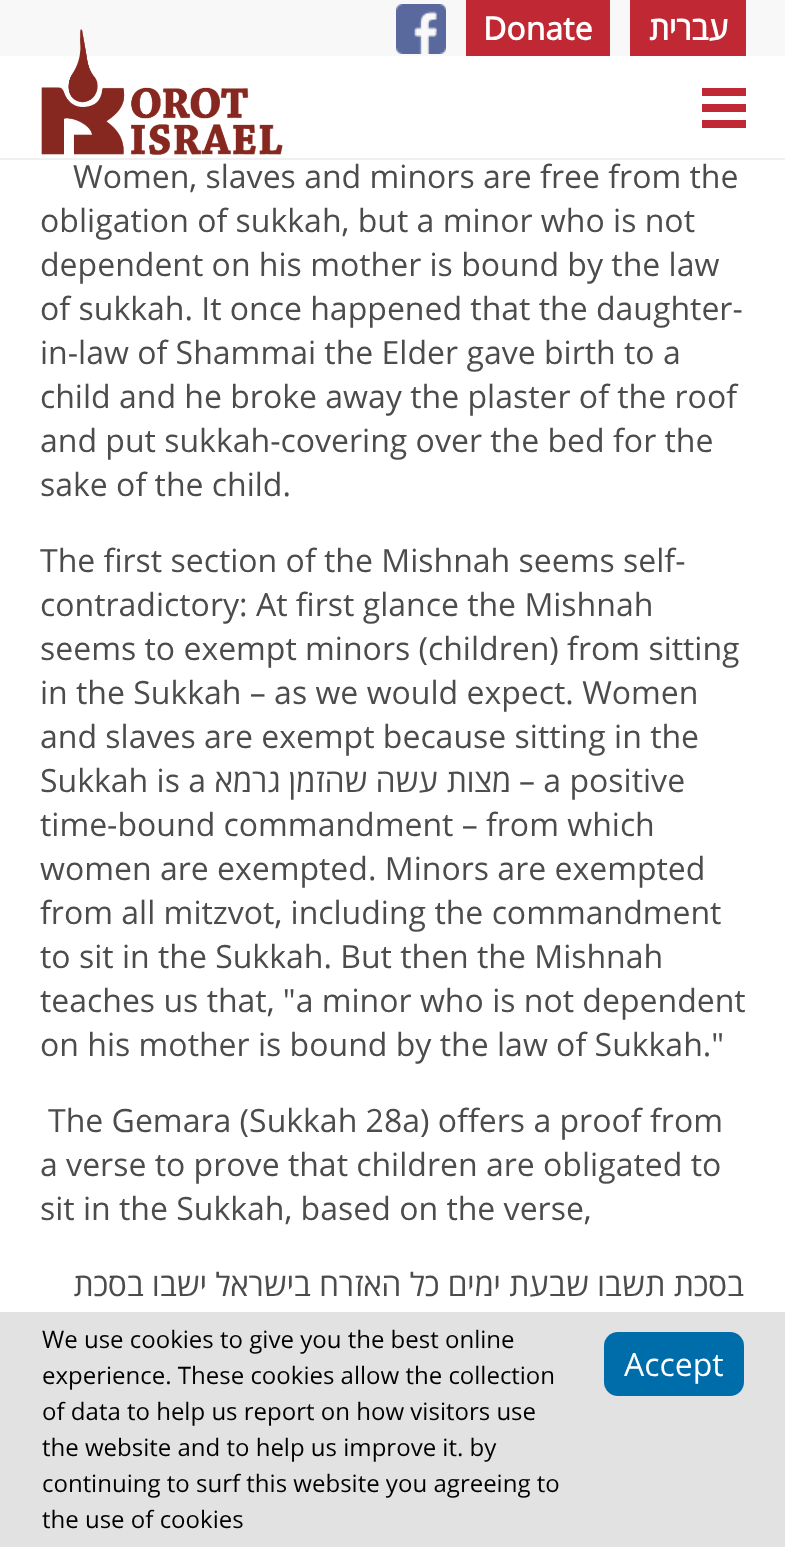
<!DOCTYPE html>
<meta charset="utf-8">
<style>body { margin: 0 } canvas { display: block }</style>
<canvas id="canvas" width="785" height="1547"></canvas>
<img id="img1" src="img_01.png" hidden>
<img id="img2" src="img_02.png" hidden>
<script>
window.onload = function () {
	const canvas = document.getElementById("canvas");
	const ctx = canvas.getContext("2d");
	ctx.miterLimit = 4;
	ctx.fontKerning = "normal";
	function txt(s, x, y) {
		ctx.fillText(s, x, y);
	}
	function fill(x, y, w, h) {
		ctx.fillRect(x, y, w, h);
	}
	function round(x, y, w, h, r) {
		ctx.beginPath();
		ctx.roundRect(x, y, w, h, r);
		ctx.fill();
	}
	function img(id, x, y, w, h) {
		ctx.drawImage(document.getElementById(id), x, y, w, h);
	}

	ctx.fillStyle = "#FFFFFF";
	fill(0, 0, 785, 1547);
	ctx.fillStyle = "#F8F8F8";
	fill(0, 0, 785, 56);
	img("img1", 41, 29, 242, 126);
	img("img2", 396, 4, 50, 50);
	ctx.fillStyle = "#C02833";
	fill(466, 0, 144, 56);
	fill(630, 0, 116, 56);
	ctx.fillStyle = "#F0F0F0";
	fill(0, 158, 785, 2);
	ctx.fillStyle = "#C02833";
	fill(702, 88, 44, 8);
	fill(702, 104, 44, 8);
	fill(702, 120, 44, 8);
	ctx.fillStyle = "#E2E2E2";
	fill(0, 1312, 785, 235);
	ctx.fillStyle = "#006DAB";
	round(604, 1332, 140, 64, 14);
	ctx.font = "bold 32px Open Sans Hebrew";
	ctx.fillStyle = "#FFFFFF";
	txt("Donate", 483, 40);
	ctx.direction = "rtl";
	txt("עברית", 728, 40);
	ctx.direction = "ltr";
	ctx.font = "32px Open Sans Hebrew";
	ctx.fillStyle = "#4C4C4C";
	txt("Women, slaves and minors are free from the", 73, 188);
	txt("obligation of sukkah, but a minor who is not", 40, 232);
	txt("dependent on his mother is bound by the law", 40, 276);
	txt("of sukkah. It once happened that the daughter-", 40, 320);
	txt("in-law of Shammai the Elder gave birth to a", 40, 364);
	txt("child and he broke away the plaster of the roof", 40, 408);
	txt("and put sukkah-covering over the bed for the", 40, 452);
	txt("sake of the child.", 40, 496);
	txt("The first section of the Mishnah seems self-", 40, 572);
	txt("contradictory: At first glance the Mishnah", 40, 616);
	txt("seems to exempt minors (children) from sitting", 40, 660);
	txt("in the Sukkah – as we would expect. Women", 40, 704);
	txt("and slaves are exempt because sitting in the", 40, 748);
	txt("Sukkah is a", 40, 792);
	ctx.direction = "rtl";
	txt("מצות עשה שהזמן גרמא", 511, 792);
	ctx.direction = "ltr";
	txt("– a positive", 519, 792);
	txt("time-bound commandment – from which", 40, 836);
	txt("women are exempted. Minors are exempted", 40, 880);
	txt("from all mitzvot, including the commandment", 40, 924);
	txt("to sit in the Sukkah. But then the Mishnah", 40, 968);
	txt("teaches us that, \"a minor who is not dependent", 40, 1012);
	txt("on his mother is bound by the law of Sukkah.\"", 40, 1056);
	txt("The Gemara (Sukkah 28a) offers a proof from", 48, 1132);
	txt("a verse to prove that children are obligated to", 40, 1176);
	txt("sit in the Sukkah, based on the verse,", 40, 1220);
	ctx.direction = "rtl";
	txt("בסכת תשבו שבעת ימים כל האזרח בישראל ישבו בסכת", 744, 1296);
	ctx.direction = "ltr";
	ctx.font = "24px Open Sans Hebrew";
	ctx.fillStyle = "#000000";
	txt("We use cookies to give you the best online", 42, 1348);
	txt("experience. These cookies allow the collection", 42, 1384);
	txt("of data to help us report on how visitors use", 42, 1420);
	txt("the website and to help us improve it. by", 42, 1456);
	txt("continuing to surf this website you agreeing to", 42, 1492);
	txt("the use of cookies", 42, 1528);
	ctx.font = "32px Open Sans Hebrew";
	ctx.fillStyle = "#FFFFFF";
	txt("Accept", 624, 1376);
};
</script>
